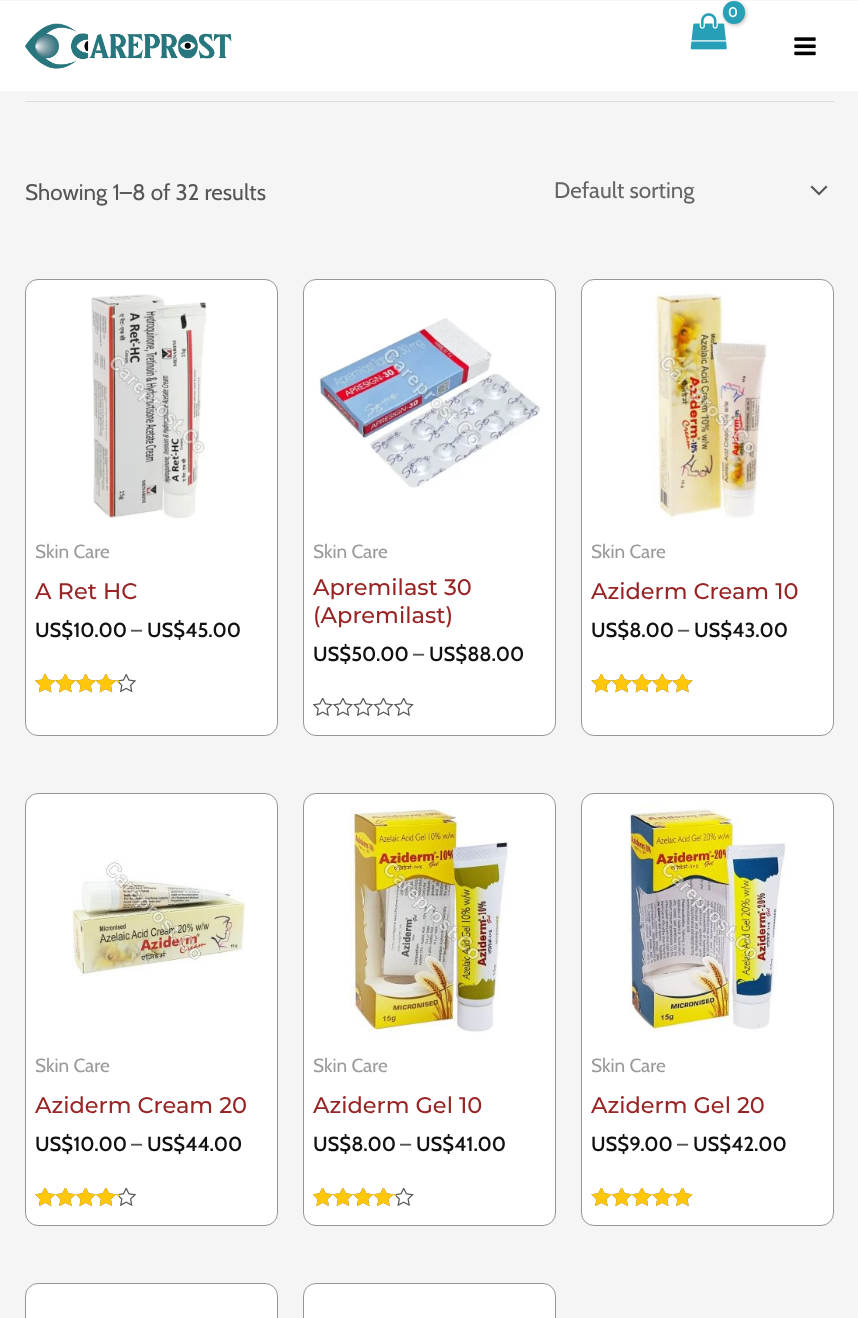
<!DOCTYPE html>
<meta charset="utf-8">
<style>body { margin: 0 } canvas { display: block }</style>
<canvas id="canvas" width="858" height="1318"></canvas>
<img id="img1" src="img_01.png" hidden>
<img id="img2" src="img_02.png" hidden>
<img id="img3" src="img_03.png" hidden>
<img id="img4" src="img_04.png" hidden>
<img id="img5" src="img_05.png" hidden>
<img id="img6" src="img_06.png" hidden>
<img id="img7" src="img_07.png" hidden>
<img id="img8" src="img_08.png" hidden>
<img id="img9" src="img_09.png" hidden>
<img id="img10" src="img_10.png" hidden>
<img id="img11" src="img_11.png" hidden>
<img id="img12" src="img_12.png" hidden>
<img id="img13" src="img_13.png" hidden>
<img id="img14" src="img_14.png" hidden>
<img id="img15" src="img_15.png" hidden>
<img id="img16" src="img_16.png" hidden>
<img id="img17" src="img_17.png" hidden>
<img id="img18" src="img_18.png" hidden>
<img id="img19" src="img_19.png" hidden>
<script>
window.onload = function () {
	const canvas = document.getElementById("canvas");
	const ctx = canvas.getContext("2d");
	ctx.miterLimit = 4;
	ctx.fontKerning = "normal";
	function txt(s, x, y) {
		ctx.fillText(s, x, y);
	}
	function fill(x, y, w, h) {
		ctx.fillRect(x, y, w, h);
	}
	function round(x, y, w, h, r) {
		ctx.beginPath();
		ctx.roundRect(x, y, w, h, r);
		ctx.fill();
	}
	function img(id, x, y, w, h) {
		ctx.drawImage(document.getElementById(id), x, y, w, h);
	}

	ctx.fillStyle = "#F5F5F5";
	fill(0, 0, 858, 1318);
	ctx.fillStyle = "#FFFFFF";
	fill(0, 1, 858, 90);
	img("img1", 690, 13, 37, 37);
	ctx.fillStyle = "rgba(0, 0, 0, 0.3)";
	ctx.filter = "blur(2px)";
	ctx.beginPath();
	ctx.roundRect(724, 3, 22, 22, 11);
	ctx.fill();
	ctx.filter = "none";
	ctx.fillStyle = "#269FB7";
	round(723, 1, 22, 23, 11);
	img("img2", 794, 37, 22, 19);
	img("img3", 25, 23, 207, 46);
	ctx.fillStyle = "#DDDDDD";
	fill(25, 101, 809, 1);
	ctx.fillStyle = "#565656";
	ctx.beginPath();
	ctx.moveTo(810.5, 187);
	ctx.lineTo(819, 195.5);
	ctx.lineTo(827.5, 187);
	ctx.lineTo(826, 185.5);
	ctx.lineTo(819, 192.5);
	ctx.lineTo(812, 185.5);
	ctx.closePath();
	ctx.fill();
	ctx.fillStyle = "#FFFFFF";
	ctx.beginPath();
	ctx.roundRect(25.5, 279.5, 252, 456, 12.5);
	ctx.fill();
	ctx.strokeStyle = "#969696";
	ctx.stroke();
	img("img4", 91, 294, 116, 225);
	img("img5", 35, 674, 102, 19);
	img("img6", 35, 674, 84, 19);
	ctx.beginPath();
	ctx.roundRect(303.5, 279.5, 252, 456, 12.5);
	ctx.fill();
	ctx.stroke();
	img("img7", 319, 318, 222, 170);
	img("img8", 313, 698, 101, 18);
	ctx.beginPath();
	ctx.roundRect(581.5, 279.5, 252, 456, 12.5);
	ctx.fill();
	ctx.stroke();
	img("img9", 653, 289, 114, 232);
	img("img10", 591, 674, 102, 19);
	img("img11", 591, 674, 102, 19);
	ctx.beginPath();
	ctx.roundRect(25.5, 793.5, 252, 432, 12.5);
	ctx.fill();
	ctx.stroke();
	img("img12", 72, 859, 174, 117);
	img("img13", 35, 1188, 102, 18);
	img("img14", 35, 1188, 84, 18);
	ctx.beginPath();
	ctx.roundRect(303.5, 793.5, 252, 432, 12.5);
	ctx.fill();
	ctx.stroke();
	img("img15", 349, 806, 163, 229);
	img("img8", 313, 1188, 101, 18);
	img("img16", 313, 1188, 83, 18);
	ctx.beginPath();
	ctx.roundRect(581.5, 793.5, 252, 432, 12.5);
	ctx.fill();
	ctx.stroke();
	img("img17", 628, 803, 162, 232);
	img("img18", 591, 1188, 102, 18);
	img("img19", 591, 1188, 102, 18);
	ctx.beginPath();
	ctx.roundRect(25.5, 1283.5, 252, 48, 12.5);
	ctx.fill();
	ctx.stroke();
	ctx.beginPath();
	ctx.roundRect(303.5, 1283.5, 252, 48, 12.5);
	ctx.fill();
	ctx.stroke();
	ctx.letterSpacing = "-1px";
	ctx.font = "600 14px Cabin";
	txt("0", 728, 17);
	ctx.letterSpacing = "0px";
	ctx.font = "22.5px Cabin";
	ctx.fillStyle = "#565656";
	txt("Showing 1–8 of 32 results", 25, 200);
	ctx.fillStyle = "#666666";
	txt("Default sorting", 554, 198);
	ctx.font = "19px Cabin";
	ctx.fillStyle = "#9A9A9A";
	txt("Skin Care", 35, 558);
	ctx.font = "100 22.5px Montserrat";
	ctx.fillStyle = "#982525";
	txt("A Ret HC", 35, 599);
	ctx.font = "600 20.25px Cabin";
	ctx.fillStyle = "#111111";
	txt("US$10.00", 35, 637);
	ctx.fillStyle = "#565656";
	txt("–", 131, 637);
	ctx.fillStyle = "#111111";
	txt("US$45.00", 147, 637);
	ctx.font = "19px Cabin";
	ctx.fillStyle = "#9A9A9A";
	txt("Skin Care", 313, 558);
	ctx.font = "100 22.5px Montserrat";
	ctx.fillStyle = "#982525";
	txt("Apremilast 30", 313, 595);
	txt("(Apremilast)", 313, 623);
	ctx.font = "600 20.25px Cabin";
	ctx.fillStyle = "#111111";
	txt("US$50.00", 313, 661);
	ctx.fillStyle = "#565656";
	txt("–", 413, 661);
	ctx.fillStyle = "#111111";
	txt("US$88.00", 429, 661);
	ctx.font = "19px Cabin";
	ctx.fillStyle = "#9A9A9A";
	txt("Skin Care", 591, 558);
	ctx.font = "100 22.5px Montserrat";
	ctx.fillStyle = "#982525";
	txt("Aziderm Cream 10", 591, 599);
	ctx.font = "600 20.25px Cabin";
	ctx.fillStyle = "#111111";
	txt("US$8.00", 591, 637);
	ctx.fillStyle = "#565656";
	txt("–", 678, 637);
	ctx.fillStyle = "#111111";
	txt("US$43.00", 694, 637);
	ctx.font = "19px Cabin";
	ctx.fillStyle = "#9A9A9A";
	txt("Skin Care", 35, 1072);
	ctx.font = "100 22.5px Montserrat";
	ctx.fillStyle = "#982525";
	txt("Aziderm Cream 20", 35, 1113);
	ctx.font = "600 20.25px Cabin";
	ctx.fillStyle = "#111111";
	txt("US$10.00", 35, 1151);
	ctx.fillStyle = "#565656";
	txt("–", 131, 1151);
	ctx.fillStyle = "#111111";
	txt("US$44.00", 147, 1151);
	ctx.font = "19px Cabin";
	ctx.fillStyle = "#9A9A9A";
	txt("Skin Care", 313, 1072);
	ctx.font = "100 22.5px Montserrat";
	ctx.fillStyle = "#982525";
	txt("Aziderm Gel 10", 313, 1113);
	ctx.font = "600 20.25px Cabin";
	ctx.fillStyle = "#111111";
	txt("US$8.00", 313, 1151);
	ctx.fillStyle = "#565656";
	txt("–", 400, 1151);
	ctx.fillStyle = "#111111";
	txt("US$41.00", 416, 1151);
	ctx.font = "19px Cabin";
	ctx.fillStyle = "#9A9A9A";
	txt("Skin Care", 591, 1072);
	ctx.font = "100 22.5px Montserrat";
	ctx.fillStyle = "#982525";
	txt("Aziderm Gel 20", 591, 1113);
	ctx.font = "600 20.25px Cabin";
	ctx.fillStyle = "#111111";
	txt("US$9.00", 591, 1151);
	ctx.fillStyle = "#565656";
	txt("–", 677, 1151);
	ctx.fillStyle = "#111111";
	txt("US$42.00", 693, 1151);
};
</script>
